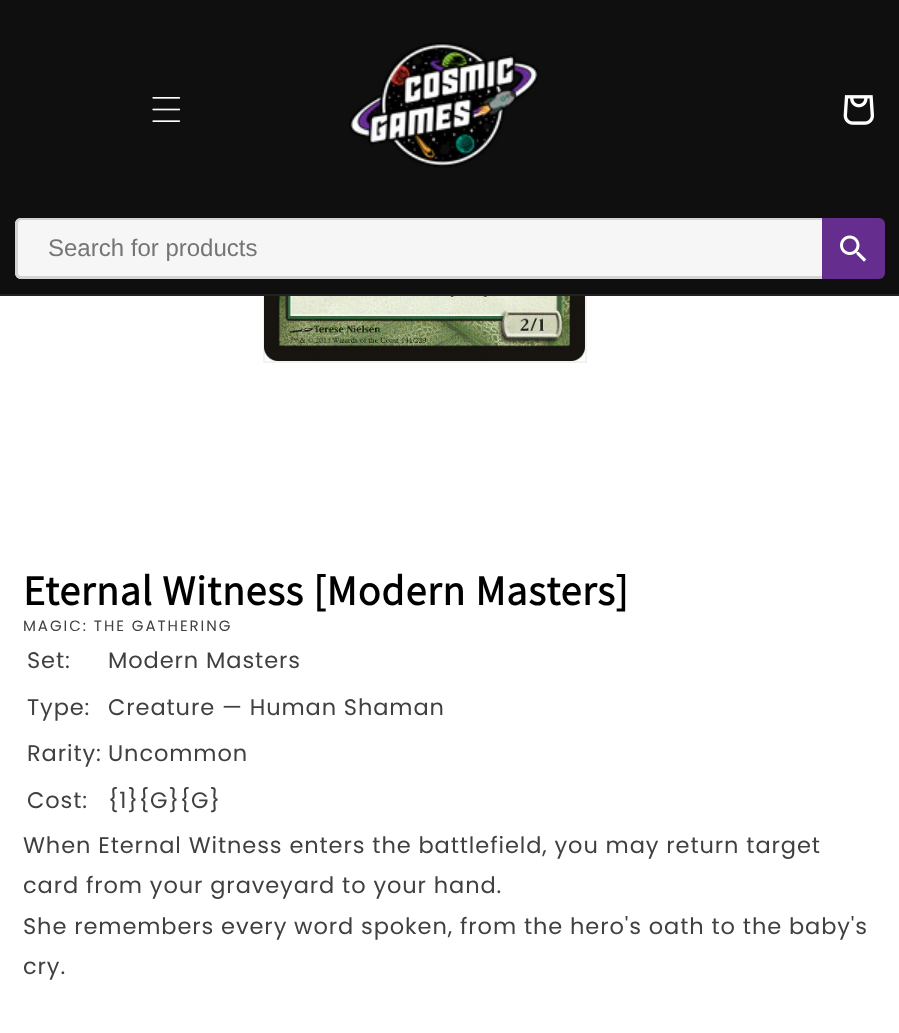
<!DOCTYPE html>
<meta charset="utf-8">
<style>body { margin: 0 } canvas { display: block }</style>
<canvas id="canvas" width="899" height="1033"></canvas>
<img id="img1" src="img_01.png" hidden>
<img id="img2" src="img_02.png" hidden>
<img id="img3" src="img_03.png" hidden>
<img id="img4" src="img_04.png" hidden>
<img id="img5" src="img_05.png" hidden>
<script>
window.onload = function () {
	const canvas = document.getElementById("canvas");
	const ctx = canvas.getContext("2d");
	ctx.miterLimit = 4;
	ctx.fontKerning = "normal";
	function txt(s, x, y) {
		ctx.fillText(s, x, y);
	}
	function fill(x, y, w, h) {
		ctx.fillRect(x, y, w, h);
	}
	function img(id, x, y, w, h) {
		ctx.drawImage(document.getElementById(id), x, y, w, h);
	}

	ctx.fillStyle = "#FFFFFF";
	fill(0, 0, 899, 1033);
	ctx.strokeStyle = "#F2F2F2";
	ctx.lineWidth = 2;
	ctx.strokeRect(264, -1, 322, 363);
	ctx.fillStyle = "#0F0F0F";
	fill(0, 0, 899, 294);
	ctx.fillStyle = "#222222";
	fill(0, 294, 899, 2);
	img("img1", 152, 97, 29, 25);
	img("img2", 349, 42, 190, 126);
	img("img3", 843, 95, 31, 30);
	ctx.fillStyle = "#F6F6F6";
	ctx.beginPath();
	ctx.roundRect(15, 218, 807, 61, [6, 0, 0, 6]);
	ctx.fill();
	ctx.fillStyle = "#D3D3D3";
	ctx.beginPath();
	ctx.moveTo(21, 218);
	ctx.lineTo(822, 218);
	ctx.lineTo(822, 279);
	ctx.lineTo(21, 279);
	ctx.bezierCurveTo(18, 279, 15, 276, 15, 273);
	ctx.lineTo(15, 224);
	ctx.bezierCurveTo(15, 220, 18, 218, 21, 218);
	ctx.closePath();
	ctx.moveTo(21, 220);
	ctx.lineTo(822, 220);
	ctx.lineTo(822, 276);
	ctx.lineTo(21, 276);
	ctx.bezierCurveTo(19, 276, 18, 275, 18, 273);
	ctx.lineTo(18, 224);
	ctx.bezierCurveTo(18, 222, 19, 220, 21, 220);
	ctx.closePath();
	ctx.fill("evenodd");
	ctx.fillStyle = "#652D8D";
	ctx.beginPath();
	ctx.roundRect(822, 218, 63, 61, [0, 6, 6, 0]);
	ctx.fill();
	img("img4", 840, 235, 27, 27);
	img("img5", 264, 296, 321, 65);
	ctx.font = "24px Liberation Sans";
	ctx.fillStyle = "#757575";
	txt("Search for products", 48, 256);
	ctx.letterSpacing = "0.9px";
	ctx.font = "bold 42px Assistant";
	ctx.fillStyle = "#000000";
	txt("Eternal Witness [Modern Masters]", 23, 605);
	ctx.letterSpacing = "1.95px";
	ctx.font = "15px Poppins";
	ctx.fillStyle = "#404040";
	txt("MAGIC: THE GATHERING", 23, 631);
	ctx.letterSpacing = "0.9px";
	ctx.font = "22.5px Poppins";
	txt("Set:", 27, 668);
	txt("Modern Masters", 108, 668);
	txt("Type:", 27, 715);
	txt("Creature — Human Shaman", 108, 715);
	txt("Rarity:", 27, 761);
	txt("Uncommon", 108, 761);
	txt("Cost:", 27, 808);
	txt("{1}{G}{G}", 108, 808);
	txt("When Eternal Witness enters the battlefield, you may return target", 23, 853);
	txt("card from your graveyard to your hand.", 23, 893);
	txt("She remembers every word spoken, from the hero's oath to the baby's", 23, 934);
	txt("cry.", 23, 974);
};
</script>
